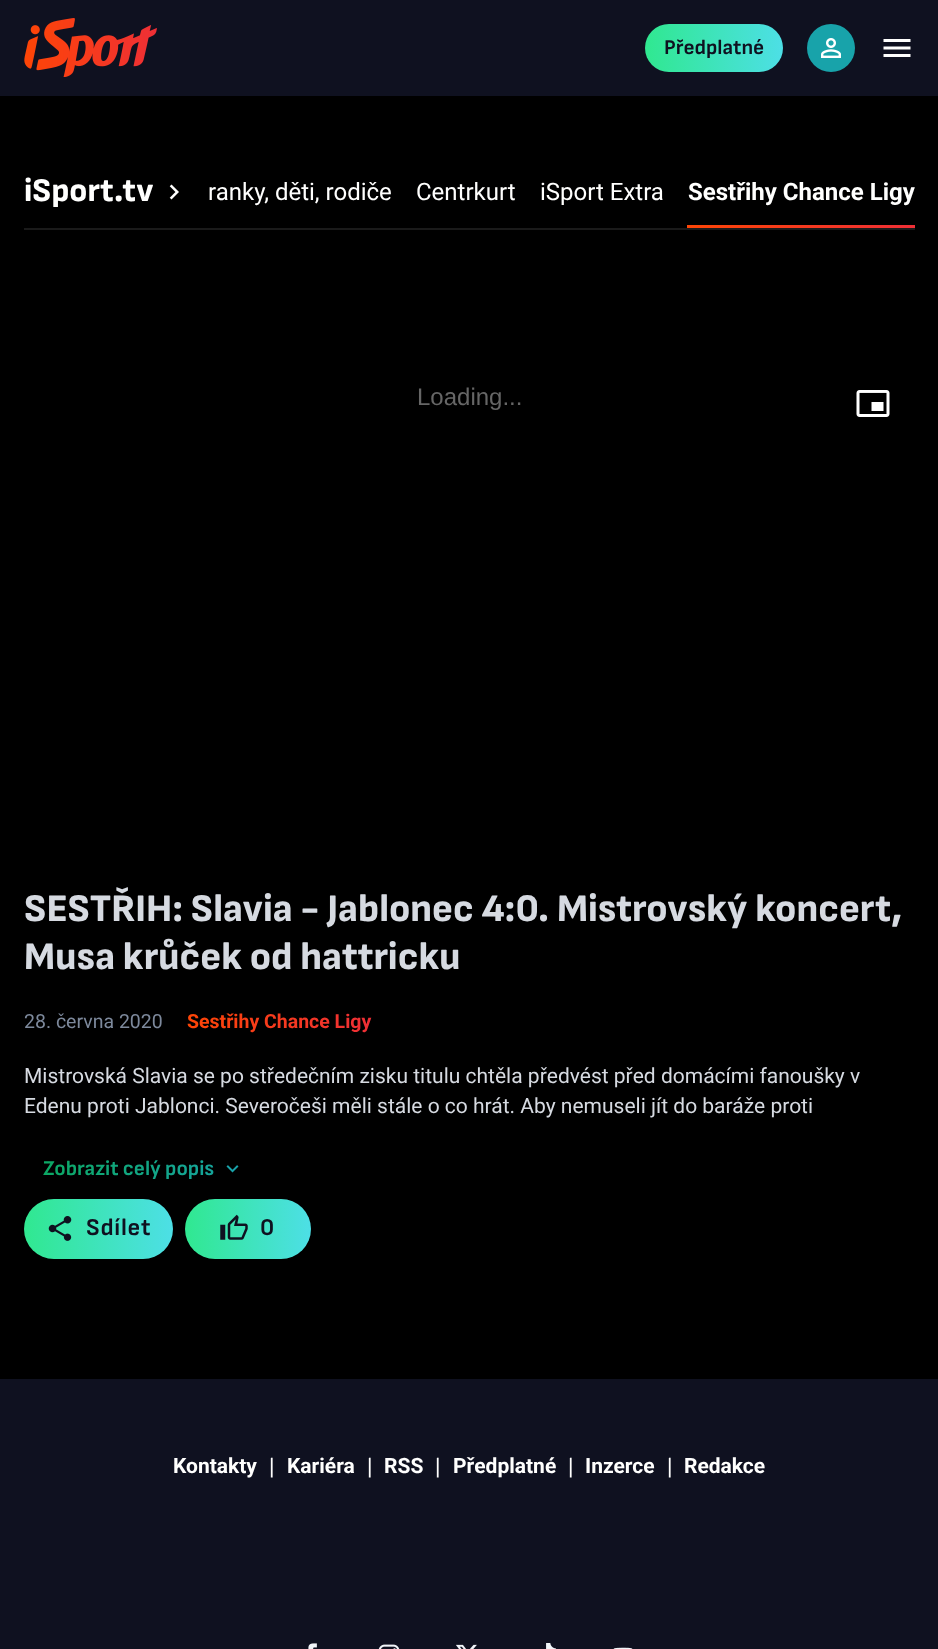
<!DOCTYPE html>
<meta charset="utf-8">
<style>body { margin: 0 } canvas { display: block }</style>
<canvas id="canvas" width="938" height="1649"></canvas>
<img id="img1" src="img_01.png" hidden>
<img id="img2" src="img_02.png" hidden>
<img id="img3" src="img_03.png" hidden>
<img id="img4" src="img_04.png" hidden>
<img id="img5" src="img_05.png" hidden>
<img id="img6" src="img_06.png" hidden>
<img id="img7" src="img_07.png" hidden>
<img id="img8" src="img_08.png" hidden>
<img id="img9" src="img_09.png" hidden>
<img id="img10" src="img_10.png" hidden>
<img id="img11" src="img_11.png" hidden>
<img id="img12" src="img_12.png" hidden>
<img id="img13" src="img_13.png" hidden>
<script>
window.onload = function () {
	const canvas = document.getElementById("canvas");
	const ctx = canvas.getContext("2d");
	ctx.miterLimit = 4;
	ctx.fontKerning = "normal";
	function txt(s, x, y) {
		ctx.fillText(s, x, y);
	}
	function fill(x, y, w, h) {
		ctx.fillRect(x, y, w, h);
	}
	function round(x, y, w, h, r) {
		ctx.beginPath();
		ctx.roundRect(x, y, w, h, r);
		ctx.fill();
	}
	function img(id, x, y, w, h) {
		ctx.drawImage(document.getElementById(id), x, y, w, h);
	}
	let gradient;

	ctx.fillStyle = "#000000";
	fill(0, 0, 938, 1649);
	ctx.fillStyle = "#0F1120";
	fill(0, 0, 938, 96);
	img("img1", 24, 18, 133, 59);
	gradient = ctx.createLinearGradient(645, 48, 783, 48);
	gradient.addColorStop(0, "#30E890");
	gradient.addColorStop(1, "#4DDFE6");
	ctx.fillStyle = gradient;
	round(645, 24, 138, 48, 24);
	ctx.fillStyle = "#18A3AA";
	ctx.beginPath();
	ctx.arc(831, 48, 24, 0, Math.PI * 2);
	ctx.fill();
	img("img2", 821, 38, 20, 20);
	img("img3", 883, 39, 28, 18);
	ctx.fillStyle = "#1A1A1A";
	fill(24, 228, 891, 2);
	img("img4", 169, 184, 10, 16);
	gradient = ctx.createLinearGradient(687, 227, 915, 227);
	gradient.addColorStop(0, "#FD4506");
	gradient.addColorStop(1, "#EF2F36");
	ctx.fillStyle = gradient;
	fill(687, 225, 228, 3);
	img("img5", 856, 390, 34, 27);
	img("img6", 226, 1165, 13, 8);
	gradient = ctx.createLinearGradient(24, 1229, 173, 1229);
	gradient.addColorStop(0, "#30E890");
	gradient.addColorStop(1, "#4DDFE6");
	ctx.fillStyle = gradient;
	round(24, 1199, 149, 60, 30);
	img("img7", 48, 1216, 24, 25);
	gradient = ctx.createLinearGradient(185, 1229, 311, 1229);
	gradient.addColorStop(0, "#30E890");
	gradient.addColorStop(1, "#4DDFE6");
	ctx.fillStyle = gradient;
	round(185, 1199, 126, 60, 30);
	img("img8", 220, 1214, 28, 26);
	ctx.fillStyle = "#0F1120";
	fill(0, 1379, 938, 270);
	img("img9", 308, 1643, 9, 6);
	img("img10", 378, 1644, 22, 5);
	img("img11", 456, 1644, 21, 5);
	img("img12", 546, 1643, 10, 6);
	img("img13", 613, 1647, 20, 2);
	ctx.font = "bold 21px Sofia Sans";
	txt("Předplatné", 664, 54);
	ctx.font = "800 33px Sofia Sans";
	ctx.fillStyle = "#FFFFFE";
	txt("iSport.tv", 24, 201);
	ctx.font = "24px Roboto";
	txt("ranky, děti, rodiče", 208, 200);
	txt("Centrkurt", 416, 200);
	txt("iSport Extra", 540, 200);
	ctx.font = "bold 24px Roboto";
	txt("Sestřihy Chance Ligy", 688, 200);
	ctx.font = "24px Liberation Sans";
	ctx.fillStyle = "#666666";
	txt("Loading...", 417, 405);
	ctx.font = "800 39px Sofia Sans";
	ctx.fillStyle = "#D6DAE1";
	txt("SESTŘIH: Slavia - Jablonec 4:0. Mistrovský koncert,", 24, 921);
	txt("Musa krůček od hattricku", 24, 969);
	ctx.font = "19.5px Roboto";
	ctx.fillStyle = "#7D899C";
	txt("28. června 2020", 24, 1028);
	ctx.font = "bold 19.5px Roboto";
	gradient = ctx.createLinearGradient(187, 1022, 371, 1022);
	gradient.addColorStop(0, "#FD4506");
	gradient.addColorStop(1, "#EF2F36");
	ctx.fillStyle = gradient;
	txt("Sestřihy Chance Ligy", 187, 1028);
	ctx.font = "21px Roboto";
	ctx.fillStyle = "#D6DAE1";
	txt("Mistrovská Slavia se po středečním zisku titulu chtěla předvést před domácími fanoušky v", 24, 1083);
	txt("Edenu proti Jablonci. Severočeši měli stále o co hrát. Aby nemuseli jít do baráže proti", 24, 1113);
	ctx.font = "bold 21px Sofia Sans";
	gradient = ctx.createLinearGradient(24, 1169, 264, 1169);
	gradient.addColorStop(0, "#0BA85E");
	gradient.addColorStop(1, "#18A3AA");
	ctx.fillStyle = gradient;
	txt("Zobrazit celý popis", 43, 1175);
	ctx.letterSpacing = "0.75px";
	ctx.font = "bold 24px Sofia Sans";
	ctx.fillStyle = "#0F1120";
	txt("Sdílet", 86, 1235);
	txt("0", 260, 1235);
	ctx.letterSpacing = "0px";
	ctx.font = "bold 21px Roboto";
	ctx.fillStyle = "#FFFFFE";
	txt("Kontakty", 173, 1473);
	ctx.font = "21px Liberation Sans";
	txt("|", 269, 1473);
	ctx.font = "bold 21px Roboto";
	txt("Kariéra", 287, 1473);
	ctx.font = "21px Liberation Sans";
	txt("|", 367, 1473);
	ctx.font = "bold 21px Roboto";
	txt("RSS", 384, 1473);
	ctx.font = "21px Liberation Sans";
	txt("|", 435, 1473);
	ctx.font = "bold 21px Roboto";
	txt("Předplatné", 453, 1473);
	ctx.font = "21px Liberation Sans";
	txt("|", 568, 1473);
	ctx.font = "bold 21px Roboto";
	txt("Inzerce", 585, 1473);
	ctx.font = "21px Liberation Sans";
	txt("|", 667, 1473);
	ctx.font = "bold 21px Roboto";
	txt("Redakce", 684, 1473);
};
</script>
